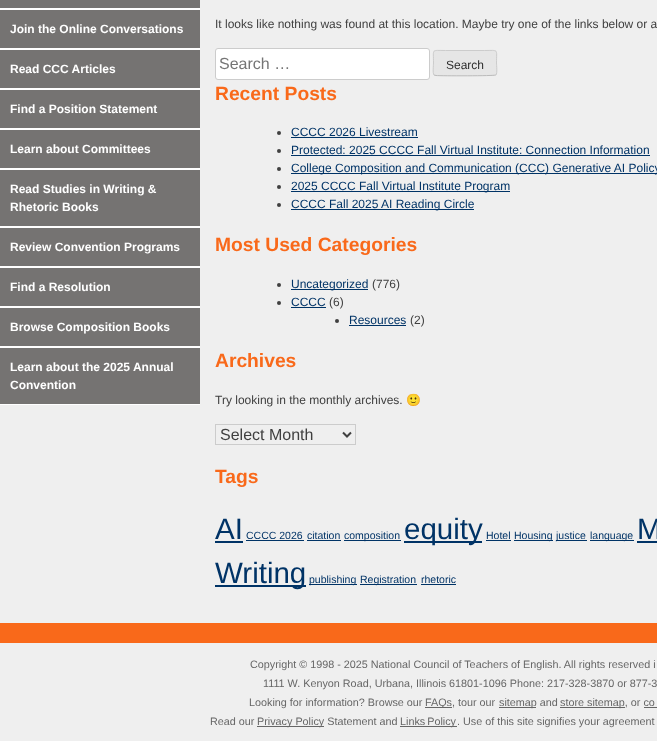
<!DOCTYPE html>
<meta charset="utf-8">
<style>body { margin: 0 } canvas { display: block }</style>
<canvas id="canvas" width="657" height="741"></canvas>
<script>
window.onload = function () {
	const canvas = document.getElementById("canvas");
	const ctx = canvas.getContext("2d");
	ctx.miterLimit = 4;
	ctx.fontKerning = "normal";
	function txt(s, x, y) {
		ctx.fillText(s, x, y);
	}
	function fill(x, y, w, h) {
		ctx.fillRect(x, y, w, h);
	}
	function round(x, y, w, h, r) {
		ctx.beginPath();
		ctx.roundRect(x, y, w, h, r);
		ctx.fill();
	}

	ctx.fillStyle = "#EFEFEF";
	fill(0, 0, 657, 741);
	ctx.fillStyle = "#FFFFFF";
	fill(0, 8, 200, 2);
	ctx.fillStyle = "#757372";
	fill(0, 0, 200, 8);
	ctx.fillStyle = "#FFFFFF";
	fill(0, 48, 200, 2);
	ctx.fillStyle = "#757372";
	fill(0, 10, 200, 38);
	ctx.fillStyle = "#FFFFFF";
	fill(0, 88, 200, 2);
	ctx.fillStyle = "#757372";
	fill(0, 50, 200, 38);
	ctx.fillStyle = "#FFFFFF";
	fill(0, 128, 200, 2);
	ctx.fillStyle = "#757372";
	fill(0, 90, 200, 38);
	ctx.fillStyle = "#FFFFFF";
	fill(0, 168, 200, 2);
	ctx.fillStyle = "#757372";
	fill(0, 130, 200, 38);
	ctx.fillStyle = "#FFFFFF";
	fill(0, 226, 200, 2);
	ctx.fillStyle = "#757372";
	fill(0, 170, 200, 56);
	ctx.fillStyle = "#FFFFFF";
	fill(0, 266, 200, 2);
	ctx.fillStyle = "#757372";
	fill(0, 228, 200, 38);
	ctx.fillStyle = "#FFFFFF";
	fill(0, 306, 200, 2);
	ctx.fillStyle = "#757372";
	fill(0, 268, 200, 38);
	ctx.fillStyle = "#FFFFFF";
	fill(0, 346, 200, 2);
	ctx.fillStyle = "#757372";
	fill(0, 308, 200, 38);
	ctx.fillStyle = "#FFFFFF";
	fill(0, 404, 200, 1);
	ctx.fillStyle = "#757372";
	fill(0, 348, 200, 56);
	ctx.fillStyle = "#FFFFFF";
	ctx.beginPath();
	ctx.roundRect(215.5, 48.5, 214, 31, 2.5);
	ctx.fill();
	ctx.strokeStyle = "#CCCCCC";
	ctx.stroke();
	ctx.fillStyle = "#E6E6E6";
	round(433, 50, 64, 26, 3);
	ctx.beginPath();
	ctx.moveTo(496, 75);
	ctx.lineTo(495.5, 75);
	ctx.bezierCurveTo(494.5, 76, 441, 76, 436, 75.5);
	ctx.lineTo(434, 75);
	ctx.strokeStyle = "#BBBBBB";
	ctx.stroke();
	ctx.beginPath();
	ctx.moveTo(434, 75);
	ctx.bezierCurveTo(432.5, 73, 433.5, 65.5, 433.5, 63);
	ctx.bezierCurveTo(433.5, 48.5, 431, 50.5, 445.5, 50.5);
	ctx.lineTo(484.5, 50.5);
	ctx.bezierCurveTo(499, 50.5, 496.5, 48.5, 496.5, 63);
	ctx.bezierCurveTo(496.5, 65.5, 497.5, 73, 496, 75);
	ctx.strokeStyle = "#CCCCCC";
	ctx.stroke();
	ctx.fillStyle = "#404040";
	ctx.beginPath();
	ctx.arc(279, 133, 2, 0, Math.PI * 2);
	ctx.fill();
	ctx.fillStyle = "#003366";
	fill(291, 137, 127, 1);
	ctx.fillStyle = "#404040";
	ctx.beginPath();
	ctx.arc(279, 151, 2, 0, Math.PI * 2);
	ctx.fill();
	ctx.fillStyle = "#003366";
	fill(291, 155, 359, 1);
	ctx.fillStyle = "#404040";
	ctx.beginPath();
	ctx.arc(279, 169, 2, 0, Math.PI * 2);
	ctx.fill();
	ctx.fillStyle = "#003366";
	fill(291, 173, 366, 1);
	ctx.fillStyle = "#404040";
	ctx.beginPath();
	ctx.arc(279, 187, 2, 0, Math.PI * 2);
	ctx.fill();
	ctx.fillStyle = "#003366";
	fill(291, 191, 219, 1);
	ctx.fillStyle = "#404040";
	ctx.beginPath();
	ctx.arc(279, 205, 2, 0, Math.PI * 2);
	ctx.fill();
	ctx.fillStyle = "#003366";
	fill(291, 209, 183, 1);
	ctx.fillStyle = "#404040";
	ctx.beginPath();
	ctx.arc(279, 285, 2, 0, Math.PI * 2);
	ctx.fill();
	ctx.fillStyle = "#003366";
	fill(291, 289, 77, 1);
	ctx.fillStyle = "#404040";
	ctx.beginPath();
	ctx.arc(279, 303, 2, 0, Math.PI * 2);
	ctx.fill();
	ctx.fillStyle = "#003366";
	fill(291, 307, 35, 1);
	ctx.fillStyle = "#404040";
	ctx.beginPath();
	ctx.arc(337, 321, 2, 0, Math.PI * 2);
	ctx.fill();
	ctx.fillStyle = "#003366";
	fill(349, 325, 57, 1);
	ctx.strokeRect(215.5, 424.5, 140, 20);
	ctx.beginPath();
	ctx.moveTo(343, 432.5);
	ctx.lineTo(347, 436.5);
	ctx.lineTo(351, 432.5);
	ctx.strokeStyle = "#404040";
	ctx.lineWidth = 2;
	ctx.stroke();
	fill(215, 541, 28, 2);
	fill(246, 540, 58, 1);
	fill(307, 540, 34, 1);
	fill(344, 540, 57, 1);
	fill(404, 541, 78, 2);
	fill(486, 540, 25, 1);
	fill(514, 540, 39, 1);
	fill(556, 540, 31, 1);
	fill(590, 540, 44, 1);
	fill(637, 541, 20, 2);
	fill(215, 585, 91, 2);
	fill(309, 584, 48, 1);
	fill(360, 584, 57, 1);
	fill(421, 584, 35, 1);
	ctx.fillStyle = "#F9691A";
	fill(0, 623, 657, 20);
	ctx.fillStyle = "#666666";
	fill(425, 707, 27, 1);
	fill(499, 707, 37, 1);
	fill(560, 707, 65, 1);
	fill(644, 707, 13, 1);
	fill(257, 726, 67, 1);
	fill(400, 726, 57, 1);
	ctx.font = "bold 12px Liberation Sans";
	ctx.fillStyle = "#FFFFFF";
	txt("Join the Online Conversations", 10, 33);
	txt("Read CCC Articles", 10, 73);
	txt("Find a Position Statement", 10, 113);
	txt("Learn about Committees", 10, 153);
	txt("Read Studies in Writing &", 10, 193);
	txt("Rhetoric Books", 10, 211);
	txt("Review Convention Programs", 10, 251);
	txt("Find a Resolution", 10, 291);
	txt("Browse Composition Books", 10, 331);
	txt("Learn about the 2025 Annual", 10, 371);
	txt("Convention", 10, 389);
	ctx.font = "12px Liberation Sans";
	ctx.fillStyle = "#404040";
	txt("It looks like nothing was found at this location. Maybe try one of the links below or a", 215, 28);
	ctx.font = "16px Liberation Sans";
	ctx.fillStyle = "#757575";
	txt("Search …", 219, 69);
	ctx.font = "12px Liberation Sans";
	ctx.fillStyle = "#2E2E2E";
	txt("Search", 446, 69);
	ctx.font = "bold 19.25px Liberation Sans";
	ctx.fillStyle = "#F9691A";
	txt("Recent Posts", 215, 100);
	ctx.font = "12px Liberation Sans";
	ctx.fillStyle = "#003366";
	txt("CCCC 2026 Livestream", 291, 136);
	txt("Protected: 2025 CCCC Fall Virtual Institute: Connection Information", 291, 154);
	txt("College Composition and Communication (CCC) Generative AI Policy", 291, 172);
	txt("2025 CCCC Fall Virtual Institute Program", 291, 190);
	txt("CCCC Fall 2025 AI Reading Circle", 291, 208);
	ctx.font = "bold 19.25px Liberation Sans";
	ctx.fillStyle = "#F9691A";
	txt("Most Used Categories", 215, 251);
	ctx.font = "12px Liberation Sans";
	ctx.fillStyle = "#003366";
	txt("Uncategorized", 291, 288);
	ctx.fillStyle = "#404040";
	txt("(776)", 372, 288);
	ctx.fillStyle = "#003366";
	txt("CCCC", 291, 306);
	ctx.fillStyle = "#404040";
	txt("(6)", 329, 306);
	ctx.fillStyle = "#003366";
	txt("Resources", 349, 324);
	ctx.fillStyle = "#404040";
	txt("(2)", 410, 324);
	ctx.font = "bold 19.25px Liberation Sans";
	ctx.fillStyle = "#F9691A";
	txt("Archives", 215, 367);
	ctx.font = "12px Liberation Sans";
	ctx.fillStyle = "#404040";
	txt("Try looking in the monthly archives.", 215, 404);
	ctx.font = "12px Noto Color Emoji";
	txt("🙂", 406, 404);
	ctx.font = "16px Liberation Sans";
	txt("Select Month", 220, 440);
	ctx.font = "bold 19.25px Liberation Sans";
	ctx.fillStyle = "#F9691A";
	txt("Tags", 215, 483);
	ctx.font = "29.5px Liberation Sans";
	ctx.fillStyle = "#003366";
	txt("AI", 215, 539);
	ctx.font = "10.5px Liberation Sans";
	txt("CCCC 2026", 246, 539);
	txt("citation", 307, 539);
	txt("composition", 344, 539);
	ctx.font = "29.5px Liberation Sans";
	txt("equity", 404, 539);
	ctx.font = "10.5px Liberation Sans";
	txt("Hotel", 486, 539);
	txt("Housing", 514, 539);
	txt("justice", 556, 539);
	txt("language", 590, 539);
	ctx.font = "29.5px Liberation Sans";
	txt("M", 637, 539);
	txt("Writing", 215, 583);
	ctx.font = "10.5px Liberation Sans";
	txt("publishing", 309, 583);
	txt("Registration", 360, 583);
	txt("rhetoric", 421, 583);
	ctx.font = "10.8px Liberation Sans";
	ctx.fillStyle = "#666666";
	txt("Copyright © 1998 - 2025 National Council of Teachers of English. All rights reserved i", 250, 668);
	txt("1111 W. Kenyon Road, Urbana, Illinois 61801-1096 Phone: 217-328-3870 or 877-3", 263, 687);
	txt("Looking for information? Browse our", 249, 706);
	txt("FAQs, tour our", 425, 706);
	txt("sitemap and", 499, 706);
	txt("store sitemap, or co", 560, 706);
	txt("Read our", 210, 725);
	txt("Privacy Policy Statement and", 257, 725);
	ctx.wordSpacing = "-1px";
	txt("Links Policy", 400, 725);
	ctx.wordSpacing = "0px";
	txt(". Use of this site signifies your agreement", 457, 725);
};
</script>
